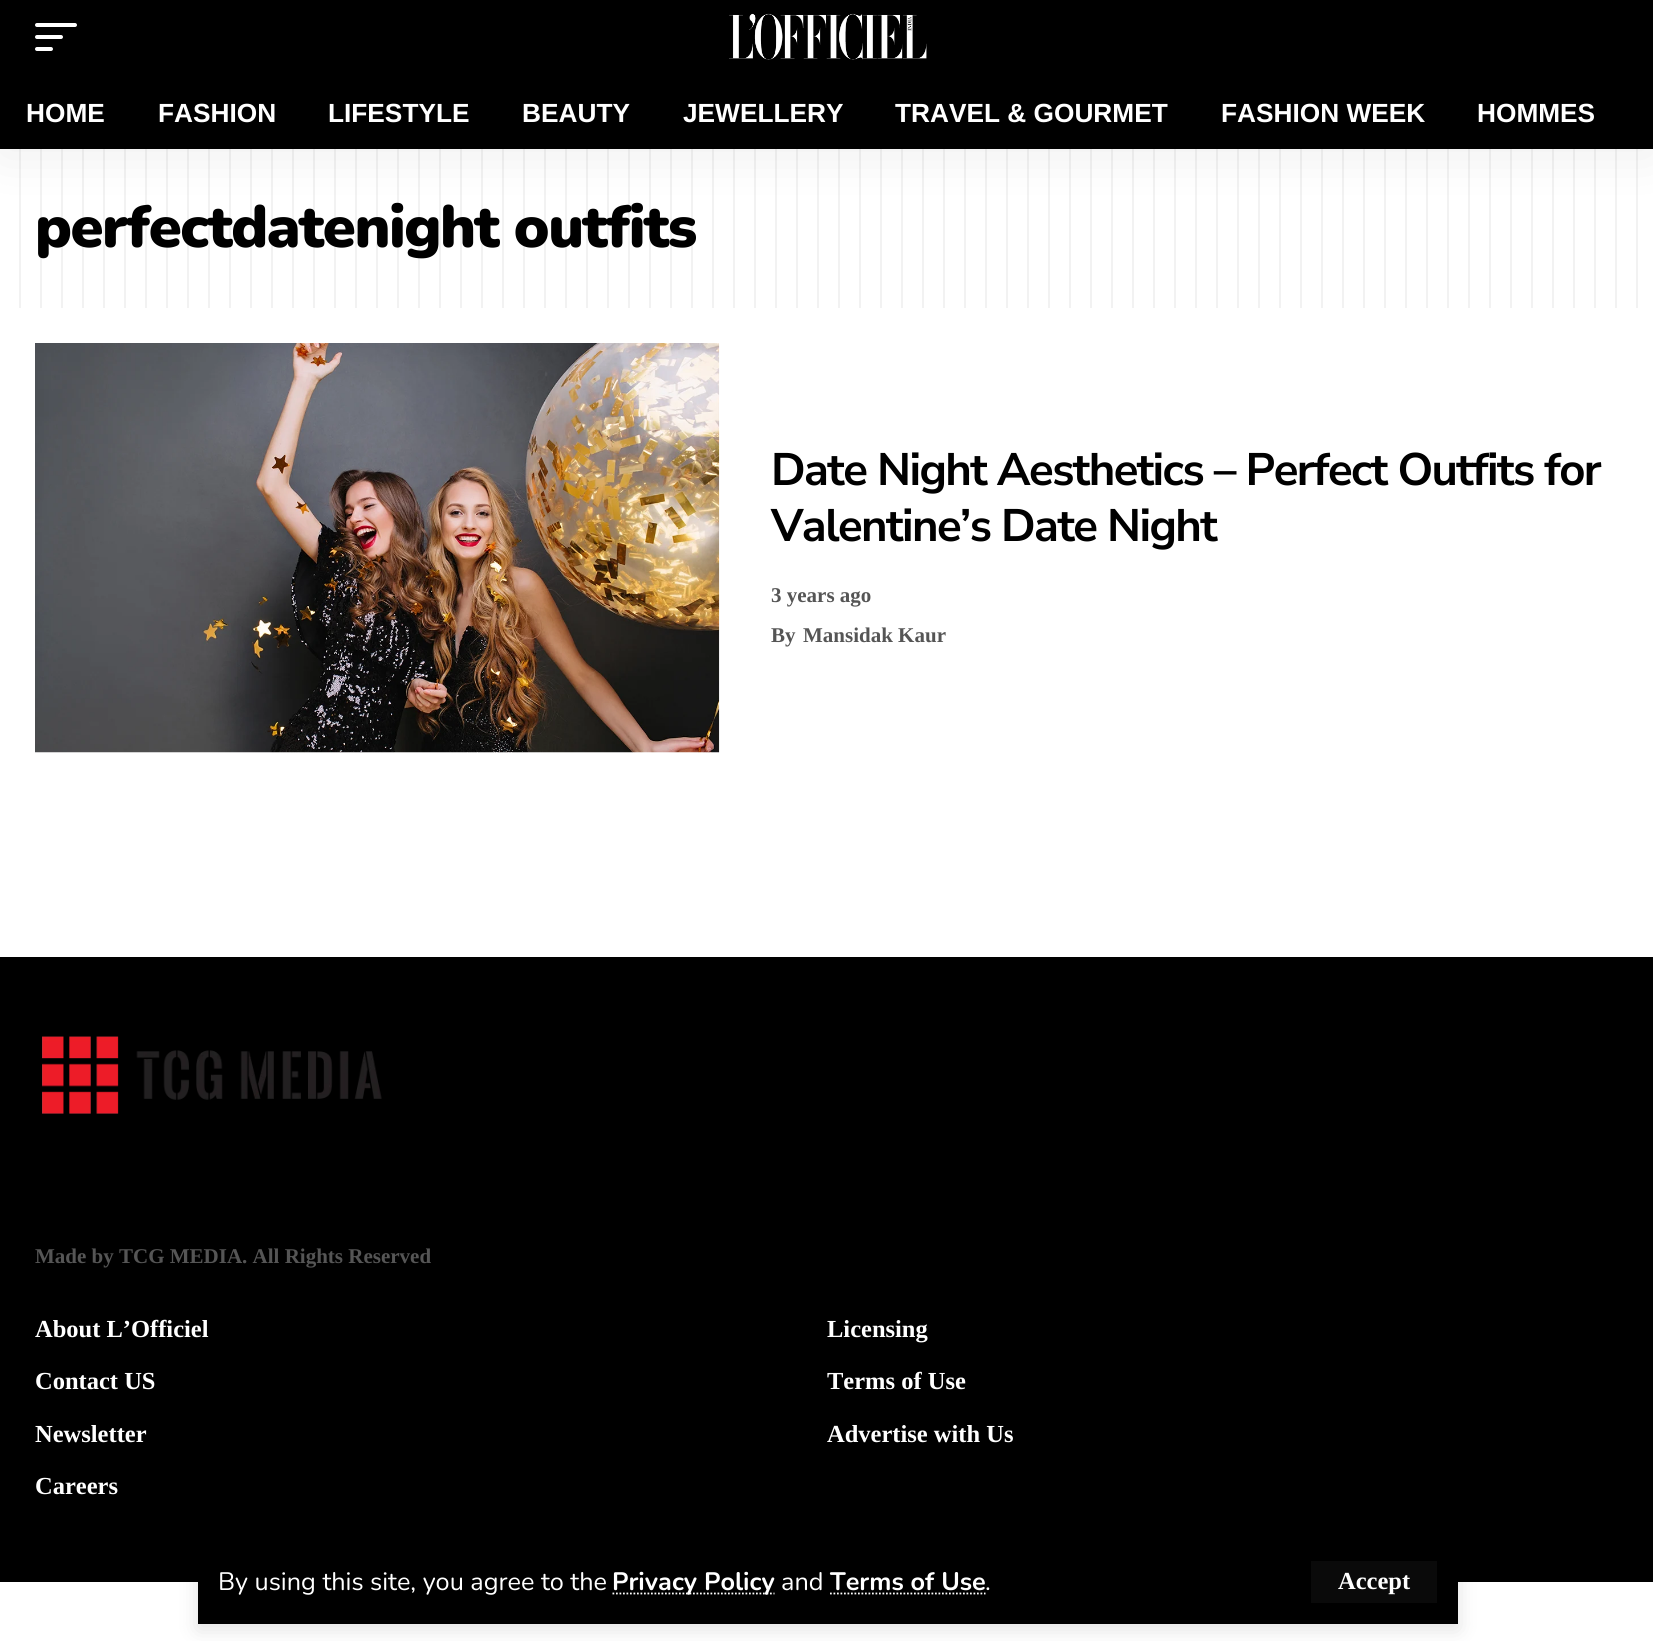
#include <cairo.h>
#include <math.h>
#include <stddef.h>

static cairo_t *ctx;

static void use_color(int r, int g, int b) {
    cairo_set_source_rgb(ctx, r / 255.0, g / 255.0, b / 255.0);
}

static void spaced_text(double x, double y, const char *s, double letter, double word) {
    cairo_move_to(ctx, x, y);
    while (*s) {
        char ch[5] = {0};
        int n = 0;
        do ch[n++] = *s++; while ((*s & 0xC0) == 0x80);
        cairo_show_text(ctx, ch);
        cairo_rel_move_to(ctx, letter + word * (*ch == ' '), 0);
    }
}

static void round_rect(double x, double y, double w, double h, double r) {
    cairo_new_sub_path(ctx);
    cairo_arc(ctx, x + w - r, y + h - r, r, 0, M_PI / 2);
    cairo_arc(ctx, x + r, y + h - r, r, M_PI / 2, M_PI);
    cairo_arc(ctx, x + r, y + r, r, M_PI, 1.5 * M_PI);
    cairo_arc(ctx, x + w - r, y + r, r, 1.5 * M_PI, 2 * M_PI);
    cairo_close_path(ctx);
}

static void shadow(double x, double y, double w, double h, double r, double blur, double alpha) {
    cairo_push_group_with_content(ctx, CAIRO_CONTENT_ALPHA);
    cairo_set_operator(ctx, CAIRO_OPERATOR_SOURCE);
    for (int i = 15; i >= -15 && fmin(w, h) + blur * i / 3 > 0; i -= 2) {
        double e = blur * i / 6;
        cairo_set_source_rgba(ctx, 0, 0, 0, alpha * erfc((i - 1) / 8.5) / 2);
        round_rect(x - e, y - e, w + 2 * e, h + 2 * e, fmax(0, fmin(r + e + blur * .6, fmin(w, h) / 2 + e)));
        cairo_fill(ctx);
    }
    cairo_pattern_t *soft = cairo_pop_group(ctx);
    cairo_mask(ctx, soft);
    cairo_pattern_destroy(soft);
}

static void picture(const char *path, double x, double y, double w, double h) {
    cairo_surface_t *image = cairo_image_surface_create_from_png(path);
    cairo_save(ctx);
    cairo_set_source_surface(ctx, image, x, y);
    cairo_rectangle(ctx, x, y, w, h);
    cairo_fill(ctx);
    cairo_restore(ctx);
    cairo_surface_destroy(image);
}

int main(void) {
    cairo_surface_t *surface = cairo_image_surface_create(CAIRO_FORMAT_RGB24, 1653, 1641);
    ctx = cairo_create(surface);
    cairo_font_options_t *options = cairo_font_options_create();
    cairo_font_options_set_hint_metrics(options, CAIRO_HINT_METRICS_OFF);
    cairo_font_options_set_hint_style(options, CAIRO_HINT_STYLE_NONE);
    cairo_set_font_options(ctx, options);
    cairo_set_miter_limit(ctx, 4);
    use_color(255, 255, 255);
    cairo_paint(ctx);
    cairo_select_font_face(ctx, "Nunito Black", CAIRO_FONT_SLANT_NORMAL, CAIRO_FONT_WEIGHT_NORMAL);
    cairo_set_font_size(ctx, 59.5);
    use_color(0, 0, 0);
    spaced_text(35, 247, "perfectdatenight outfits", -1.5, 0);
    picture("img2.png", 19, 149, 1619, 159);
    use_color(0, 0, 0);
    shadow(0, 7, 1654, 149, 0, 26, 0.07);
    use_color(0, 0, 0);
    cairo_rectangle(ctx, 0, 0, 1653, 149);
    cairo_fill(ctx);
    use_color(255, 255, 255);
    round_rect(35, 23, 42, 4, 2);
    cairo_fill(ctx);
    round_rect(35, 35, 28, 4, 2);
    cairo_fill(ctx);
    round_rect(35, 47, 18, 4, 2);
    cairo_fill(ctx);
    picture("img1.png", 729, 13, 198, 47);
    cairo_select_font_face(ctx, "Liberation Sans", CAIRO_FONT_SLANT_NORMAL, CAIRO_FONT_WEIGHT_BOLD);
    cairo_set_font_size(ctx, 26.25);
    cairo_move_to(ctx, 26, 122);
    cairo_show_text(ctx, "HOME");
    cairo_move_to(ctx, 158, 122);
    cairo_show_text(ctx, "FASHION");
    cairo_move_to(ctx, 328, 122);
    cairo_show_text(ctx, "LIFESTYLE");
    cairo_move_to(ctx, 522, 122);
    cairo_show_text(ctx, "BEAUTY");
    cairo_move_to(ctx, 683, 122);
    cairo_show_text(ctx, "JEWELLERY");
    cairo_move_to(ctx, 895, 122);
    cairo_show_text(ctx, "TRAVEL & GOURMET");
    cairo_move_to(ctx, 1221, 122);
    cairo_show_text(ctx, "FASHION WEEK");
    cairo_move_to(ctx, 1477, 122);
    cairo_show_text(ctx, "HOMMES");
    use_color(0, 0, 0);
    cairo_rectangle(ctx, 0, 957, 1653, 625);
    cairo_fill(ctx);
    use_color(0, 0, 0);
    shadow(198, 1545, 1260, 84, 0, 10.5, 0.12);
    use_color(0, 0, 0);
    cairo_rectangle(ctx, 198, 1582, 1260, 42);
    cairo_fill(ctx);
    cairo_select_font_face(ctx, "Nunito", CAIRO_FONT_SLANT_NORMAL, CAIRO_FONT_WEIGHT_NORMAL);
    cairo_set_font_size(ctx, 25.25);
    use_color(255, 255, 255);
    cairo_move_to(ctx, 218, 1590);
    cairo_show_text(ctx, "By using this site, you agree to the");
    cairo_new_path(ctx);
    cairo_move_to(ctx, 612.5, 1593.5);
    cairo_line_to(ctx, 774.5, 1593.5);
    cairo_set_line_width(ctx, 1.8);
    cairo_set_dash(ctx, (double[]){1.75, 1.75}, 2, 0);
    cairo_stroke(ctx);
    cairo_select_font_face(ctx, "Nunito", CAIRO_FONT_SLANT_NORMAL, CAIRO_FONT_WEIGHT_BOLD);
    cairo_move_to(ctx, 612, 1590);
    cairo_show_text(ctx, "Privacy Policy");
    cairo_select_font_face(ctx, "Nunito", CAIRO_FONT_SLANT_NORMAL, CAIRO_FONT_WEIGHT_NORMAL);
    cairo_move_to(ctx, 781, 1590);
    cairo_show_text(ctx, "and");
    cairo_select_font_face(ctx, "Nunito", CAIRO_FONT_SLANT_NORMAL, CAIRO_FONT_WEIGHT_BOLD);
    cairo_move_to(ctx, 830, 1590);
    cairo_show_text(ctx, "Terms of Use");
    cairo_new_path(ctx);
    cairo_move_to(ctx, 830, 1593.5);
    cairo_line_to(ctx, 985.5, 1593.5);
    cairo_stroke(ctx);
    cairo_select_font_face(ctx, "Nunito", CAIRO_FONT_SLANT_NORMAL, CAIRO_FONT_WEIGHT_NORMAL);
    cairo_move_to(ctx, 985, 1590);
    cairo_show_text(ctx, ".");
    use_color(10, 10, 10);
    cairo_rectangle(ctx, 1311, 1561, 126, 42);
    cairo_fill(ctx);
    cairo_select_font_face(ctx, "Liberation Serif", CAIRO_FONT_SLANT_NORMAL, CAIRO_FONT_WEIGHT_BOLD);
    cairo_set_font_size(ctx, 24.5);
    use_color(255, 255, 255);
    cairo_move_to(ctx, 1338, 1589);
    cairo_show_text(ctx, "Accept");
    picture("img3.png", 35, 343, 685, 410);
    cairo_select_font_face(ctx, "Nunito Sans", CAIRO_FONT_SLANT_NORMAL, CAIRO_FONT_WEIGHT_BOLD);
    cairo_set_font_size(ctx, 45.5);
    use_color(0, 0, 0);
    spaced_text(771, 485, "Date Night Aesthetics – Perfect Outfits for", -1.6, 0);
    spaced_text(771, 541, "Valentine’s Date Night", -1.6, 0);
    cairo_select_font_face(ctx, "Liberation Serif", CAIRO_FONT_SLANT_NORMAL, CAIRO_FONT_WEIGHT_BOLD);
    cairo_set_font_size(ctx, 21);
    use_color(85, 85, 85);
    cairo_move_to(ctx, 771, 602);
    cairo_show_text(ctx, "3 years ago");
    cairo_move_to(ctx, 771, 642);
    cairo_show_text(ctx, "By");
    cairo_move_to(ctx, 803, 642);
    cairo_show_text(ctx, "Mansidak Kaur");
    picture("img4.png", 42, 1036, 340, 78);
    cairo_move_to(ctx, 35, 1263);
    cairo_show_text(ctx, "Made by TCG MEDIA. All Rights Reserved");
    cairo_set_font_size(ctx, 24.5);
    use_color(255, 255, 255);
    cairo_move_to(ctx, 35, 1337);
    cairo_show_text(ctx, "About L’Officiel");
    cairo_move_to(ctx, 35, 1389);
    cairo_show_text(ctx, "Contact US");
    cairo_move_to(ctx, 35, 1442);
    cairo_show_text(ctx, "Newsletter");
    cairo_move_to(ctx, 35, 1494);
    cairo_show_text(ctx, "Careers");
    cairo_move_to(ctx, 827, 1337);
    cairo_show_text(ctx, "Licensing");
    cairo_move_to(ctx, 827, 1389);
    cairo_show_text(ctx, "Terms of Use");
    cairo_move_to(ctx, 827, 1442);
    cairo_show_text(ctx, "Advertise with Us");
    cairo_surface_write_to_png(surface, "result.png");
    cairo_font_options_destroy(options);
    cairo_destroy(ctx);
    cairo_surface_destroy(surface);
    return 0;
}
